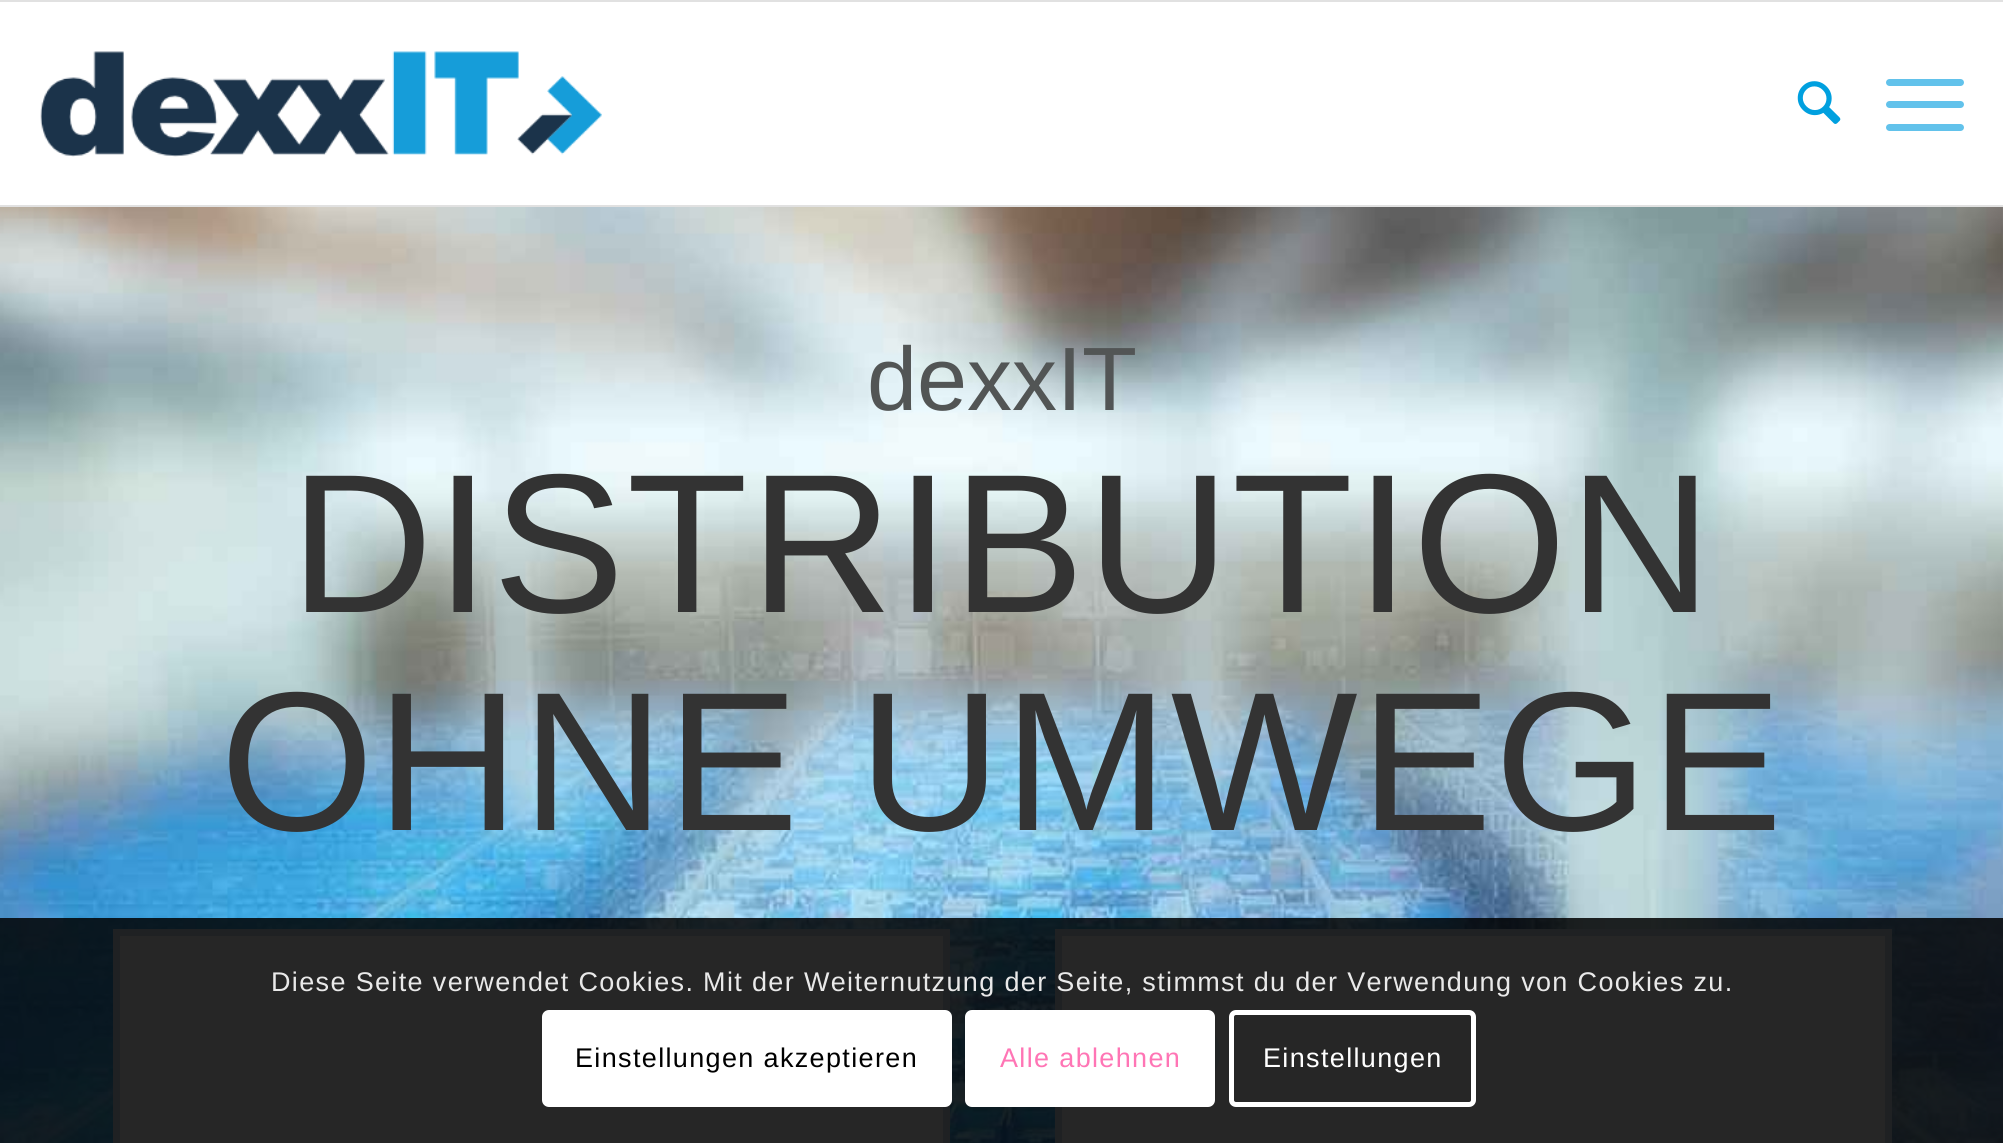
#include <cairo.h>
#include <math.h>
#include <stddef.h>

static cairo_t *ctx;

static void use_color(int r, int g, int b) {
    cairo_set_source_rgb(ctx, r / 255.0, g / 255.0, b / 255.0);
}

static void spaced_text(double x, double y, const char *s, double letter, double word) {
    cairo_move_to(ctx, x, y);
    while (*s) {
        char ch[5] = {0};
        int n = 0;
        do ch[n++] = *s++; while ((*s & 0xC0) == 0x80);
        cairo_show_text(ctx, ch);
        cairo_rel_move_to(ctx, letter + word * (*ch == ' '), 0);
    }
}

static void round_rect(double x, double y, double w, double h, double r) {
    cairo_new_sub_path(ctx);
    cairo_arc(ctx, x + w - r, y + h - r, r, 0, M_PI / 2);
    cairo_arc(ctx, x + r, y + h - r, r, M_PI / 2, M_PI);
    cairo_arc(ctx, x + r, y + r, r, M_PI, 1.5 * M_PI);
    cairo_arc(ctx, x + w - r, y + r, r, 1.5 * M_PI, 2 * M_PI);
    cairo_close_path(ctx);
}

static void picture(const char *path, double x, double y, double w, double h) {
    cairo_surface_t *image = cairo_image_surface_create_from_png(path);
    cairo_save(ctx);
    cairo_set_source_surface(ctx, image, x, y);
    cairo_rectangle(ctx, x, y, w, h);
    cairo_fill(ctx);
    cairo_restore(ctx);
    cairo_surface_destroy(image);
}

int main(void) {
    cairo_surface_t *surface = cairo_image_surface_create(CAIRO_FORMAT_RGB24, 2003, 1143);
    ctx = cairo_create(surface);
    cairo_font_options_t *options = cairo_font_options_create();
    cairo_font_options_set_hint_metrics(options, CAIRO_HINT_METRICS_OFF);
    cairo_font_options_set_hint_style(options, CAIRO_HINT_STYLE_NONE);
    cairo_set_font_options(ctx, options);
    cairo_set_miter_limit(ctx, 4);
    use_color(255, 255, 255);
    cairo_paint(ctx);
    use_color(225, 225, 225);
    cairo_rectangle(ctx, 0, 0, 2003, 2);
    cairo_fill(ctx);
    cairo_rectangle(ctx, 0, 205, 2003, 2);
    cairo_fill(ctx);
    picture("img1.png", 40, 51, 562, 106);
    picture("img2.png", 1797, 81, 44, 43);
    use_color(98, 194, 235);
    round_rect(1886, 101, 78, 7, 3.5);
    cairo_fill(ctx);
    round_rect(1886, 79, 78, 7, 3.5);
    cairo_fill(ctx);
    round_rect(1886, 124, 78, 7, 3.5);
    cairo_fill(ctx);
    picture("img3.png", 0, 207, 2003, 936);
    cairo_select_font_face(ctx, "Liberation Sans", CAIRO_FONT_SLANT_NORMAL, CAIRO_FONT_WEIGHT_NORMAL);
    cairo_set_font_size(ctx, 90);
    use_color(82, 85, 85);
    cairo_move_to(ctx, 867, 410);
    cairo_show_text(ctx, "dexxIT");
    cairo_set_font_size(ctx, 198);
    use_color(51, 51, 51);
    spaced_text(290, 612, "DISTRIBUTION", 2.25, 0);
    spaced_text(220, 830, "OHNE UMWEGE", 2.25, 0);
    use_color(255, 255, 255);
    cairo_rectangle(ctx, 116.5, 932.5, 830, 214);
    cairo_fill_preserve(ctx);
    use_color(206, 224, 234);
    cairo_set_line_width(ctx, 7);
    cairo_stroke(ctx);
    use_color(255, 255, 255);
    cairo_rectangle(ctx, 1058.5, 932.5, 830, 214);
    cairo_fill_preserve(ctx);
    use_color(206, 224, 234);
    cairo_stroke(ctx);
    use_color(230, 245, 252);
    cairo_arc(ctx, 1184, 1053, 35.5, 0, 2 * M_PI);
    cairo_fill_preserve(ctx);
    cairo_set_line_width(ctx, 1);
    cairo_stroke(ctx);
    cairo_set_source_rgba(ctx, 0, 0, 0, 0.85);
    cairo_rectangle(ctx, 0, 918, 2003, 225);
    cairo_fill(ctx);
    cairo_set_font_size(ctx, 27);
    use_color(233, 233, 233);
    spaced_text(271, 991, "Diese Seite verwendet Cookies. Mit der Weiternutzung der Seite, stimmst du der Verwendung von Cookies zu.", 1.35, 0);
    use_color(255, 255, 255);
    round_rect(542, 1010, 410, 97, 7);
    cairo_fill(ctx);
    use_color(0, 0, 0);
    spaced_text(575, 1067, "Einstellungen akzeptieren", 1.35, 0);
    use_color(255, 255, 255);
    round_rect(967.5, 1012.5, 245, 92, 4.5);
    cairo_fill_preserve(ctx);
    cairo_set_line_width(ctx, 5);
    cairo_stroke(ctx);
    use_color(255, 117, 181);
    spaced_text(1000, 1067, "Alle ablehnen", 1.35, 0);
    round_rect(1231.5, 1012.5, 242, 92, 4.5);
    use_color(255, 255, 255);
    cairo_stroke(ctx);
    spaced_text(1263, 1067, "Einstellungen", 1.35, 0);
    cairo_surface_write_to_png(surface, "result.png");
    cairo_font_options_destroy(options);
    cairo_destroy(ctx);
    cairo_surface_destroy(surface);
    return 0;
}
